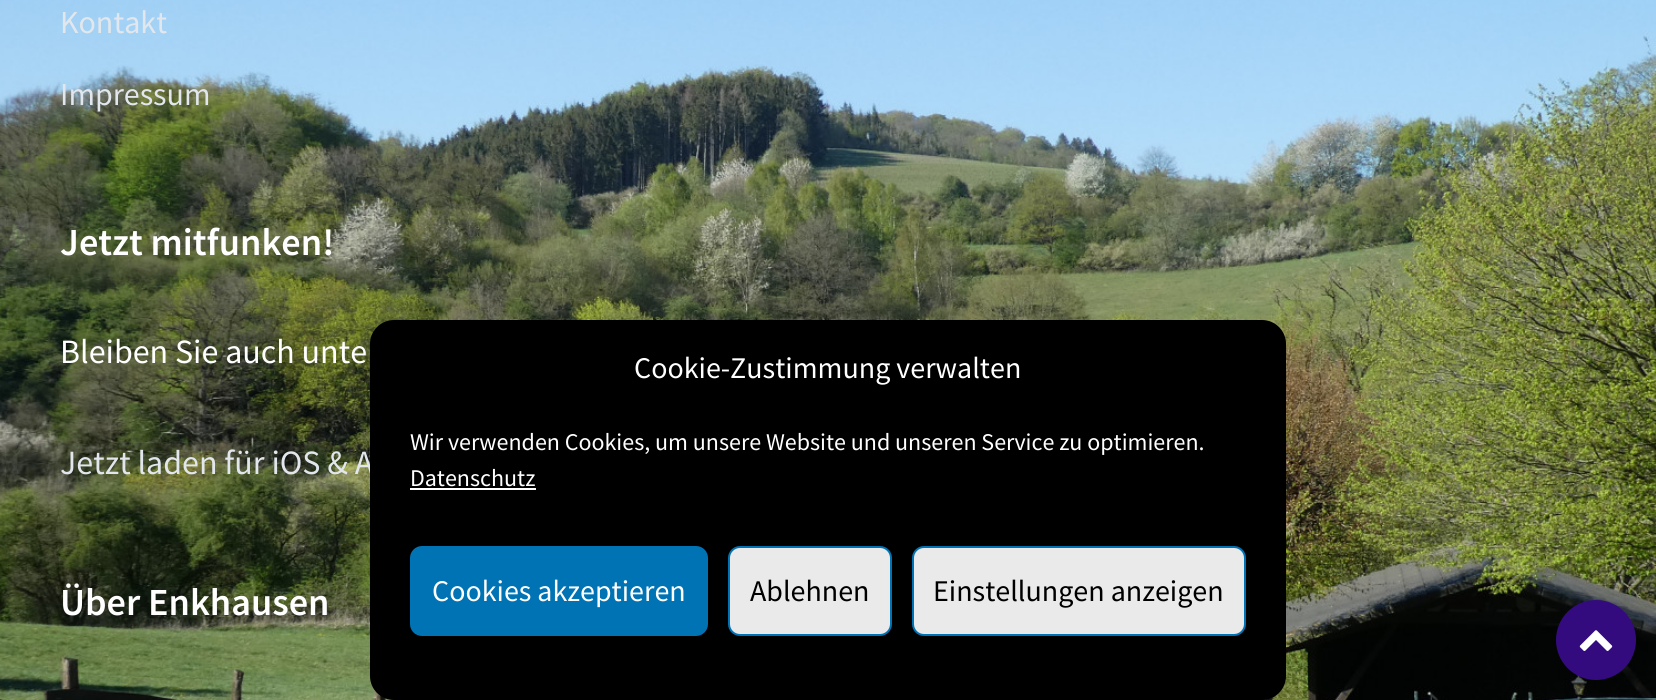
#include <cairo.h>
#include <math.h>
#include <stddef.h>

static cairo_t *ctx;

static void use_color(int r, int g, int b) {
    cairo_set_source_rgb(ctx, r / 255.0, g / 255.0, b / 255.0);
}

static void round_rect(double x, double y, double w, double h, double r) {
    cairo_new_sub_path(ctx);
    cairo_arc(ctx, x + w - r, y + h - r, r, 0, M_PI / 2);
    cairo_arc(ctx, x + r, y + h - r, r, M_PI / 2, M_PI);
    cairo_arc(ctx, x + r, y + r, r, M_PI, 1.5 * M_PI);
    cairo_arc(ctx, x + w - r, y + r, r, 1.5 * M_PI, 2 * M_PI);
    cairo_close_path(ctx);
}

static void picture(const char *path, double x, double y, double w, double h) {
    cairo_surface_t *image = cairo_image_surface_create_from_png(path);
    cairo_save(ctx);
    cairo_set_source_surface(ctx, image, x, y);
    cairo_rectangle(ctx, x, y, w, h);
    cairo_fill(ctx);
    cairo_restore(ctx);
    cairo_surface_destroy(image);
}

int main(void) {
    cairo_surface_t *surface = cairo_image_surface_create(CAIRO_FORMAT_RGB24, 1656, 700);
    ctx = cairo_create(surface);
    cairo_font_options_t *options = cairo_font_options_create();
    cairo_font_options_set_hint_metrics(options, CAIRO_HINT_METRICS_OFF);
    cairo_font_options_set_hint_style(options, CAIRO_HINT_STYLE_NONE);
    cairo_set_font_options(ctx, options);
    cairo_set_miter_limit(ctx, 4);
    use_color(255, 255, 255);
    cairo_paint(ctx);
    picture("img1.png", 0, 0, 1656, 700);
    cairo_select_font_face(ctx, "Source Sans Pro", CAIRO_FONT_SLANT_NORMAL, CAIRO_FONT_WEIGHT_NORMAL);
    cairo_set_font_size(ctx, 32);
    use_color(225, 231, 236);
    cairo_move_to(ctx, 60, 33);
    cairo_show_text(ctx, "Kontakt");
    cairo_move_to(ctx, 60, 105);
    cairo_show_text(ctx, "Impressum");
    cairo_select_font_face(ctx, "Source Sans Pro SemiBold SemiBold", CAIRO_FONT_SLANT_NORMAL, CAIRO_FONT_WEIGHT_NORMAL);
    cairo_set_font_size(ctx, 38.25);
    use_color(255, 255, 255);
    cairo_move_to(ctx, 60, 255);
    cairo_show_text(ctx, "Jetzt mitfunken!");
    cairo_select_font_face(ctx, "Source Sans Pro", CAIRO_FONT_SLANT_NORMAL, CAIRO_FONT_WEIGHT_NORMAL);
    cairo_set_font_size(ctx, 34);
    cairo_move_to(ctx, 60, 363);
    cairo_show_text(ctx, "Bleiben Sie auch unte");
    use_color(225, 231, 236);
    cairo_move_to(ctx, 60, 474);
    cairo_show_text(ctx, "Jetzt laden für iOS & A");
    cairo_select_font_face(ctx, "Source Sans Pro SemiBold SemiBold", CAIRO_FONT_SLANT_NORMAL, CAIRO_FONT_WEIGHT_NORMAL);
    cairo_set_font_size(ctx, 38.25);
    use_color(255, 255, 255);
    cairo_move_to(ctx, 60, 615);
    cairo_show_text(ctx, "Über Enkhausen");
    use_color(52, 11, 127);
    cairo_new_path(ctx);
    cairo_arc(ctx, 1596, 640, 40, 0, 2 * M_PI);
    cairo_fill(ctx);
    picture("img2.png", 1579, 630, 34, 21);
    use_color(0, 0, 0);
    round_rect(370, 320, 916, 380, 24);
    cairo_fill(ctx);
    cairo_select_font_face(ctx, "Source Sans Pro", CAIRO_FONT_SLANT_NORMAL, CAIRO_FONT_WEIGHT_NORMAL);
    cairo_set_font_size(ctx, 30);
    use_color(255, 255, 255);
    cairo_move_to(ctx, 634, 378);
    cairo_show_text(ctx, "Cookie-Zustimmung verwalten");
    cairo_set_font_size(ctx, 24);
    cairo_move_to(ctx, 410, 450);
    cairo_show_text(ctx, "Wir verwenden Cookies, um unsere Website und unseren Service zu optimieren.");
    cairo_move_to(ctx, 410, 486);
    cairo_show_text(ctx, "Datenschutz");
    cairo_rectangle(ctx, 410, 488, 126, 2);
    cairo_fill(ctx);
    use_color(0, 115, 181);
    round_rect(411, 547, 296, 88, 11);
    cairo_fill_preserve(ctx);
    cairo_stroke(ctx);
    cairo_set_font_size(ctx, 30);
    use_color(255, 255, 255);
    cairo_move_to(ctx, 432, 601);
    cairo_show_text(ctx, "Cookies akzeptieren");
    use_color(235, 234, 234);
    round_rect(729, 547, 162, 88, 11);
    cairo_fill_preserve(ctx);
    use_color(0, 115, 181);
    cairo_stroke(ctx);
    use_color(0, 0, 0);
    cairo_move_to(ctx, 750, 601);
    cairo_show_text(ctx, "Ablehnen");
    use_color(235, 234, 234);
    round_rect(913, 547, 332, 88, 11);
    cairo_fill_preserve(ctx);
    use_color(0, 115, 181);
    cairo_stroke(ctx);
    use_color(0, 0, 0);
    cairo_move_to(ctx, 933, 601);
    cairo_show_text(ctx, "Einstellungen anzeigen");
    cairo_surface_write_to_png(surface, "result.png");
    cairo_font_options_destroy(options);
    cairo_destroy(ctx);
    cairo_surface_destroy(surface);
    return 0;
}
